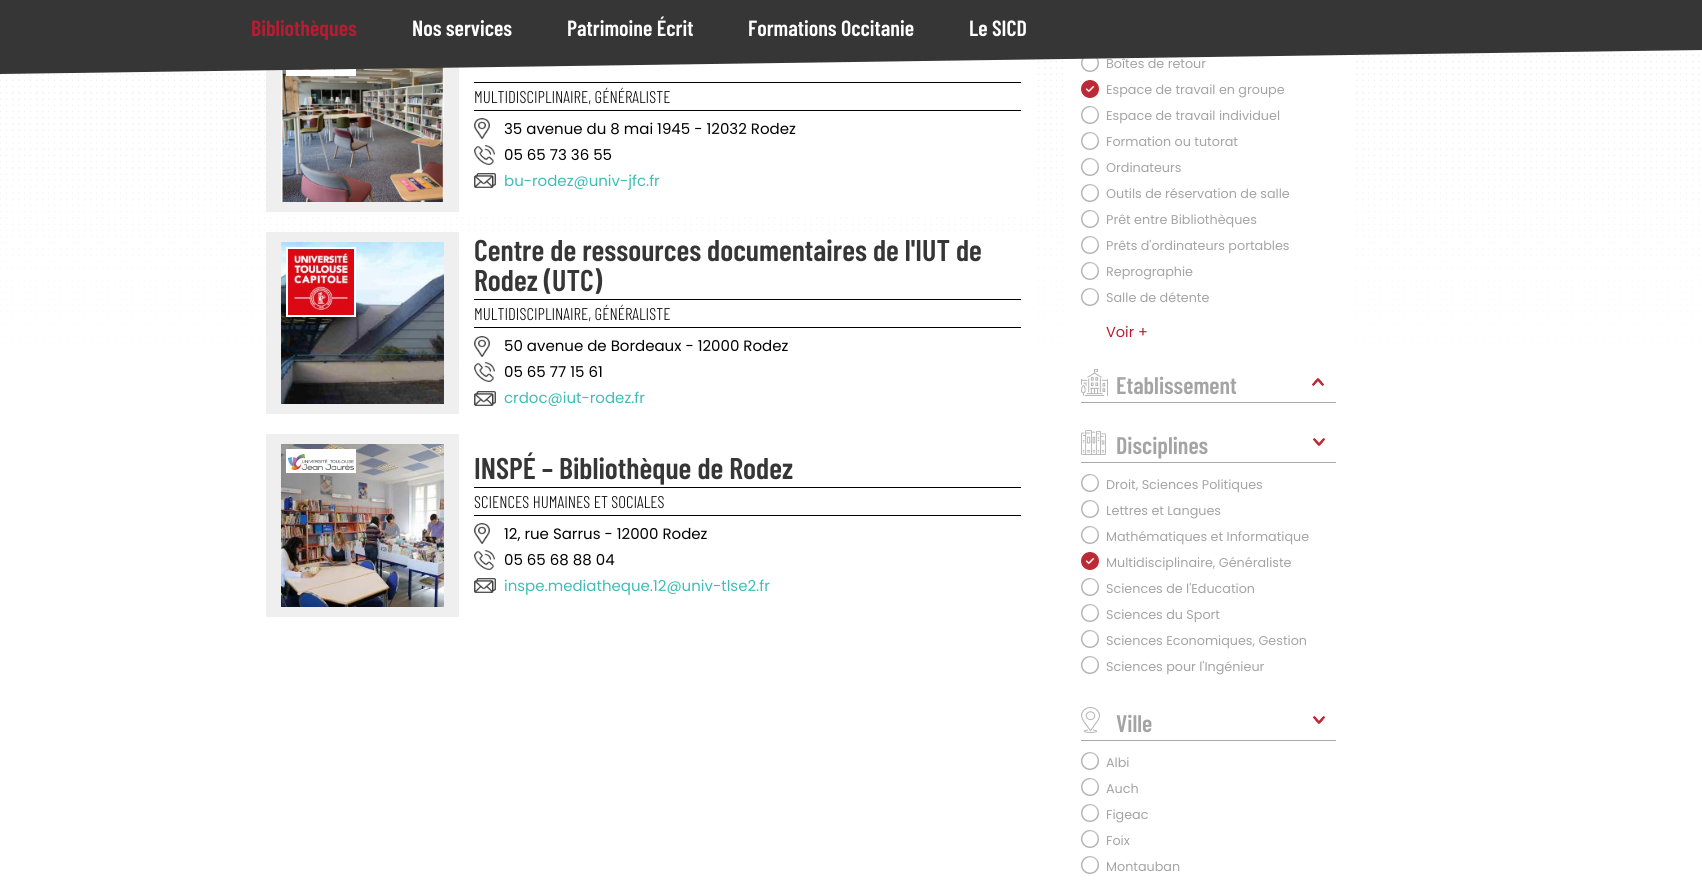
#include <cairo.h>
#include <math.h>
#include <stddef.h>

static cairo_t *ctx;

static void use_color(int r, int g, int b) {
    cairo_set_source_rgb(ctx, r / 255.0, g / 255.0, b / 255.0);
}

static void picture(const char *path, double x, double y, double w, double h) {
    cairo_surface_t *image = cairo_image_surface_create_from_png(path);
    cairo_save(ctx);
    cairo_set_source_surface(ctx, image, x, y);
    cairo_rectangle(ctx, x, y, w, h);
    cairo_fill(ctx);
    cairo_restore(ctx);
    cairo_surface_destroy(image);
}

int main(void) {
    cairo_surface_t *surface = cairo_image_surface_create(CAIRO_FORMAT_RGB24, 1702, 881);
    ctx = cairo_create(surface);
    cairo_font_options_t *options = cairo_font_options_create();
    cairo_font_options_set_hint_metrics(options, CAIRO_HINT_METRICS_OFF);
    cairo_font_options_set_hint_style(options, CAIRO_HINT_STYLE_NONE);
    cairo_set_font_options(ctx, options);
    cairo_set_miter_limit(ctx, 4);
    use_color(255, 255, 255);
    cairo_paint(ctx);
    picture("img20.png", 0, 50, 1700, 831);
    use_color(255, 255, 255);
    cairo_rectangle(ctx, 461, 61, 572, 151);
    cairo_fill(ctx);
    use_color(239, 239, 239);
    cairo_rectangle(ctx, 266, 67, 193, 145);
    cairo_fill(ctx);
    picture("img1.png", 281, 67, 163, 135);
    use_color(255, 255, 255);
    cairo_rectangle(ctx, 286, 69, 70, 7);
    cairo_fill(ctx);
    picture("img2.png", 296, 69, 39, 1);
    cairo_rectangle(ctx, 1068, 55, 283, 301);
    cairo_fill(ctx);
    picture("img12.png", 1081, 58, 18, 14);
    cairo_select_font_face(ctx, "Poppins", CAIRO_FONT_SLANT_NORMAL, CAIRO_FONT_WEIGHT_NORMAL);
    cairo_set_font_size(ctx, 12.75);
    use_color(165, 164, 164);
    cairo_move_to(ctx, 1106, 68);
    cairo_show_text(ctx, "Boîtes de retour");
    use_color(54, 54, 54);
    cairo_new_path(ctx);
    cairo_move_to(ctx, 0, -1);
    cairo_line_to(ctx, 1702, -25);
    cairo_line_to(ctx, 1702, 50);
    cairo_line_to(ctx, 0, 74);
    cairo_close_path(ctx);
    cairo_fill(ctx);
    cairo_select_font_face(ctx, "Barlow Condensed SemiBold", CAIRO_FONT_SLANT_NORMAL, CAIRO_FONT_WEIGHT_NORMAL);
    cairo_set_font_size(ctx, 22);
    use_color(185, 28, 50);
    cairo_move_to(ctx, 251, 36);
    cairo_show_text(ctx, "Bibliothèques");
    use_color(255, 255, 255);
    cairo_move_to(ctx, 412, 36);
    cairo_show_text(ctx, "Nos services");
    cairo_move_to(ctx, 567, 36);
    cairo_show_text(ctx, "Patrimoine Écrit");
    cairo_move_to(ctx, 748, 36);
    cairo_show_text(ctx, "Formations Occitanie");
    cairo_move_to(ctx, 969, 36);
    cairo_show_text(ctx, "Le SICD");
    use_color(0, 0, 0);
    cairo_rectangle(ctx, 474, 82, 547, 1);
    cairo_fill(ctx);
    cairo_rectangle(ctx, 474, 110, 547, 1);
    cairo_fill(ctx);
    cairo_select_font_face(ctx, "Barlow Condensed Light", CAIRO_FONT_SLANT_NORMAL, CAIRO_FONT_WEIGHT_NORMAL);
    cairo_set_font_size(ctx, 17);
    cairo_move_to(ctx, 474, 103);
    cairo_show_text(ctx, "MULTIDISCIPLINAIRE, GÉNÉRALISTE");
    picture("img3.png", 474, 118, 16, 21);
    cairo_select_font_face(ctx, "Poppins", CAIRO_FONT_SLANT_NORMAL, CAIRO_FONT_WEIGHT_NORMAL);
    cairo_set_font_size(ctx, 15);
    cairo_move_to(ctx, 504, 134);
    cairo_show_text(ctx, "35 avenue du 8 mai 1945 - 12032 Rodez");
    picture("img4.png", 474, 145, 21, 20);
    cairo_move_to(ctx, 504, 160);
    cairo_show_text(ctx, "05 65 73 36 55");
    picture("img5.png", 474, 173, 22, 15);
    use_color(61, 189, 182);
    cairo_move_to(ctx, 504, 186);
    cairo_show_text(ctx, "bu-rodez@univ-jfc.fr");
    use_color(255, 255, 255);
    cairo_rectangle(ctx, 462, 236, 571, 120);
    cairo_fill(ctx);
    use_color(239, 239, 239);
    cairo_rectangle(ctx, 266, 232, 193, 182);
    cairo_fill(ctx);
    picture("img6.png", 281, 242, 163, 162);
    use_color(255, 255, 255);
    cairo_rectangle(ctx, 286, 247, 70, 70);
    cairo_fill(ctx);
    picture("img7.png", 288, 249, 66, 66);
    cairo_select_font_face(ctx, "Barlow Condensed SemiBold", CAIRO_FONT_SLANT_NORMAL, CAIRO_FONT_WEIGHT_NORMAL);
    cairo_set_font_size(ctx, 30);
    use_color(54, 54, 54);
    cairo_move_to(ctx, 474, 261);
    cairo_show_text(ctx, "Centre de ressources documentaires de l'IUT de");
    cairo_move_to(ctx, 474, 291);
    cairo_show_text(ctx, "Rodez (UTC)");
    use_color(0, 0, 0);
    cairo_rectangle(ctx, 474, 299, 547, 1);
    cairo_fill(ctx);
    cairo_rectangle(ctx, 474, 327, 547, 1);
    cairo_fill(ctx);
    cairo_select_font_face(ctx, "Barlow Condensed Light", CAIRO_FONT_SLANT_NORMAL, CAIRO_FONT_WEIGHT_NORMAL);
    cairo_set_font_size(ctx, 17);
    cairo_move_to(ctx, 474, 320);
    cairo_show_text(ctx, "MULTIDISCIPLINAIRE, GÉNÉRALISTE");
    picture("img3.png", 474, 336, 16, 21);
    cairo_select_font_face(ctx, "Poppins", CAIRO_FONT_SLANT_NORMAL, CAIRO_FONT_WEIGHT_NORMAL);
    cairo_set_font_size(ctx, 15);
    cairo_move_to(ctx, 504, 351);
    cairo_show_text(ctx, "50 avenue de Bordeaux - 12000 Rodez");
    picture("img8.png", 474, 362, 21, 20);
    cairo_move_to(ctx, 504, 377);
    cairo_show_text(ctx, "05 65 77 15 61");
    picture("img5.png", 474, 391, 22, 15);
    use_color(61, 189, 182);
    cairo_move_to(ctx, 504, 403);
    cairo_show_text(ctx, "crdoc@iut-rodez.fr");
    use_color(239, 239, 239);
    cairo_rectangle(ctx, 266, 434, 193, 183);
    cairo_fill(ctx);
    picture("img9.png", 281, 444, 163, 163);
    use_color(255, 255, 255);
    cairo_rectangle(ctx, 286, 449, 70, 24);
    cairo_fill(ctx);
    picture("img10.png", 288, 454, 66, 16);
    cairo_select_font_face(ctx, "Barlow Condensed SemiBold", CAIRO_FONT_SLANT_NORMAL, CAIRO_FONT_WEIGHT_NORMAL);
    cairo_set_font_size(ctx, 30);
    use_color(54, 54, 54);
    cairo_move_to(ctx, 474, 479);
    cairo_show_text(ctx, "INSPÉ – Bibliothèque de Rodez");
    use_color(0, 0, 0);
    cairo_rectangle(ctx, 474, 487, 547, 1);
    cairo_fill(ctx);
    cairo_rectangle(ctx, 474, 515, 547, 1);
    cairo_fill(ctx);
    cairo_select_font_face(ctx, "Barlow Condensed Light", CAIRO_FONT_SLANT_NORMAL, CAIRO_FONT_WEIGHT_NORMAL);
    cairo_set_font_size(ctx, 17);
    cairo_move_to(ctx, 474, 508);
    cairo_show_text(ctx, "SCIENCES HUMAINES ET SOCIALES");
    picture("img3.png", 474, 523, 16, 21);
    cairo_select_font_face(ctx, "Poppins", CAIRO_FONT_SLANT_NORMAL, CAIRO_FONT_WEIGHT_NORMAL);
    cairo_set_font_size(ctx, 15);
    cairo_move_to(ctx, 504, 539);
    cairo_show_text(ctx, "12, rue Sarrus - 12000 Rodez");
    picture("img11.png", 474, 550, 21, 20);
    cairo_move_to(ctx, 504, 565);
    cairo_show_text(ctx, "05 65 68 88 04");
    picture("img5.png", 474, 578, 22, 15);
    use_color(61, 189, 182);
    cairo_move_to(ctx, 504, 591);
    cairo_show_text(ctx, "inspe.mediatheque.12@univ-tlse2.fr");
    picture("img13.png", 1081, 80, 18, 18);
    cairo_set_font_size(ctx, 12.75);
    use_color(165, 164, 164);
    cairo_move_to(ctx, 1106, 94);
    cairo_show_text(ctx, "Espace de travail en groupe");
    picture("img14.png", 1081, 106, 18, 18);
    cairo_move_to(ctx, 1106, 120);
    cairo_show_text(ctx, "Espace de travail individuel");
    picture("img14.png", 1081, 132, 18, 18);
    cairo_move_to(ctx, 1106, 146);
    cairo_show_text(ctx, "Formation ou tutorat");
    picture("img14.png", 1081, 158, 18, 18);
    cairo_move_to(ctx, 1106, 172);
    cairo_show_text(ctx, "Ordinateurs");
    picture("img14.png", 1081, 184, 18, 18);
    cairo_move_to(ctx, 1106, 198);
    cairo_show_text(ctx, "Outils de réservation de salle");
    picture("img14.png", 1081, 210, 18, 18);
    cairo_move_to(ctx, 1106, 224);
    cairo_show_text(ctx, "Prêt entre Bibliothèques");
    picture("img14.png", 1081, 236, 18, 18);
    cairo_move_to(ctx, 1106, 250);
    cairo_show_text(ctx, "Prêts d'ordinateurs portables");
    picture("img14.png", 1081, 262, 18, 18);
    cairo_move_to(ctx, 1106, 276);
    cairo_show_text(ctx, "Reprographie");
    picture("img14.png", 1081, 288, 18, 18);
    cairo_move_to(ctx, 1106, 302);
    cairo_show_text(ctx, "Salle de détente");
    cairo_set_font_size(ctx, 14.5);
    use_color(185, 28, 50);
    cairo_move_to(ctx, 1106, 337);
    cairo_show_text(ctx, "Voir +");
    picture("img15.png", 1081, 369, 27, 27);
    use_color(169, 169, 169);
    cairo_rectangle(ctx, 1081, 402, 255, 1);
    cairo_fill(ctx);
    cairo_select_font_face(ctx, "Barlow Condensed SemiBold", CAIRO_FONT_SLANT_NORMAL, CAIRO_FONT_WEIGHT_NORMAL);
    cairo_set_font_size(ctx, 24);
    use_color(165, 164, 164);
    cairo_move_to(ctx, 1116, 394);
    cairo_show_text(ctx, "Etablissement");
    picture("img16.png", 1312, 378, 12, 8);
    picture("img17.png", 1081, 430, 25, 25);
    use_color(169, 169, 169);
    cairo_rectangle(ctx, 1081, 462, 255, 1);
    cairo_fill(ctx);
    use_color(165, 164, 164);
    cairo_move_to(ctx, 1116, 454);
    cairo_show_text(ctx, "Disciplines");
    picture("img18.png", 1313, 438, 12, 8);
    picture("img14.png", 1081, 474, 18, 18);
    cairo_select_font_face(ctx, "Poppins", CAIRO_FONT_SLANT_NORMAL, CAIRO_FONT_WEIGHT_NORMAL);
    cairo_set_font_size(ctx, 12.75);
    cairo_move_to(ctx, 1106, 489);
    cairo_show_text(ctx, "Droit, Sciences Politiques");
    picture("img14.png", 1081, 500, 18, 18);
    cairo_move_to(ctx, 1106, 515);
    cairo_show_text(ctx, "Lettres et Langues");
    picture("img14.png", 1081, 526, 18, 18);
    cairo_move_to(ctx, 1106, 541);
    cairo_show_text(ctx, "Mathématiques et Informatique");
    picture("img13.png", 1081, 552, 18, 18);
    cairo_move_to(ctx, 1106, 567);
    cairo_show_text(ctx, "Multidisciplinaire, Généraliste");
    picture("img14.png", 1081, 578, 18, 18);
    cairo_move_to(ctx, 1106, 593);
    cairo_show_text(ctx, "Sciences de l'Education");
    picture("img14.png", 1081, 604, 18, 18);
    cairo_move_to(ctx, 1106, 619);
    cairo_show_text(ctx, "Sciences du Sport");
    picture("img14.png", 1081, 630, 18, 18);
    cairo_move_to(ctx, 1106, 645);
    cairo_show_text(ctx, "Sciences Economiques, Gestion");
    picture("img14.png", 1081, 656, 18, 18);
    cairo_move_to(ctx, 1106, 671);
    cairo_show_text(ctx, "Sciences pour l'Ingénieur");
    picture("img19.png", 1081, 707, 19, 26);
    use_color(169, 169, 169);
    cairo_rectangle(ctx, 1081, 740, 255, 1);
    cairo_fill(ctx);
    cairo_select_font_face(ctx, "Barlow Condensed SemiBold", CAIRO_FONT_SLANT_NORMAL, CAIRO_FONT_WEIGHT_NORMAL);
    cairo_set_font_size(ctx, 24);
    use_color(165, 164, 164);
    cairo_move_to(ctx, 1116, 732);
    cairo_show_text(ctx, "Ville");
    picture("img18.png", 1313, 716, 12, 8);
    picture("img14.png", 1081, 752, 18, 18);
    cairo_select_font_face(ctx, "Poppins", CAIRO_FONT_SLANT_NORMAL, CAIRO_FONT_WEIGHT_NORMAL);
    cairo_set_font_size(ctx, 12.75);
    cairo_move_to(ctx, 1106, 767);
    cairo_show_text(ctx, "Albi");
    picture("img14.png", 1081, 778, 18, 18);
    cairo_move_to(ctx, 1106, 793);
    cairo_show_text(ctx, "Auch");
    picture("img14.png", 1081, 804, 18, 18);
    cairo_move_to(ctx, 1106, 819);
    cairo_show_text(ctx, "Figeac");
    picture("img14.png", 1081, 830, 18, 18);
    cairo_move_to(ctx, 1106, 845);
    cairo_show_text(ctx, "Foix");
    picture("img14.png", 1081, 856, 18, 18);
    cairo_move_to(ctx, 1106, 871);
    cairo_show_text(ctx, "Montauban");
    cairo_surface_write_to_png(surface, "result.png");
    cairo_font_options_destroy(options);
    cairo_destroy(ctx);
    cairo_surface_destroy(surface);
    return 0;
}
